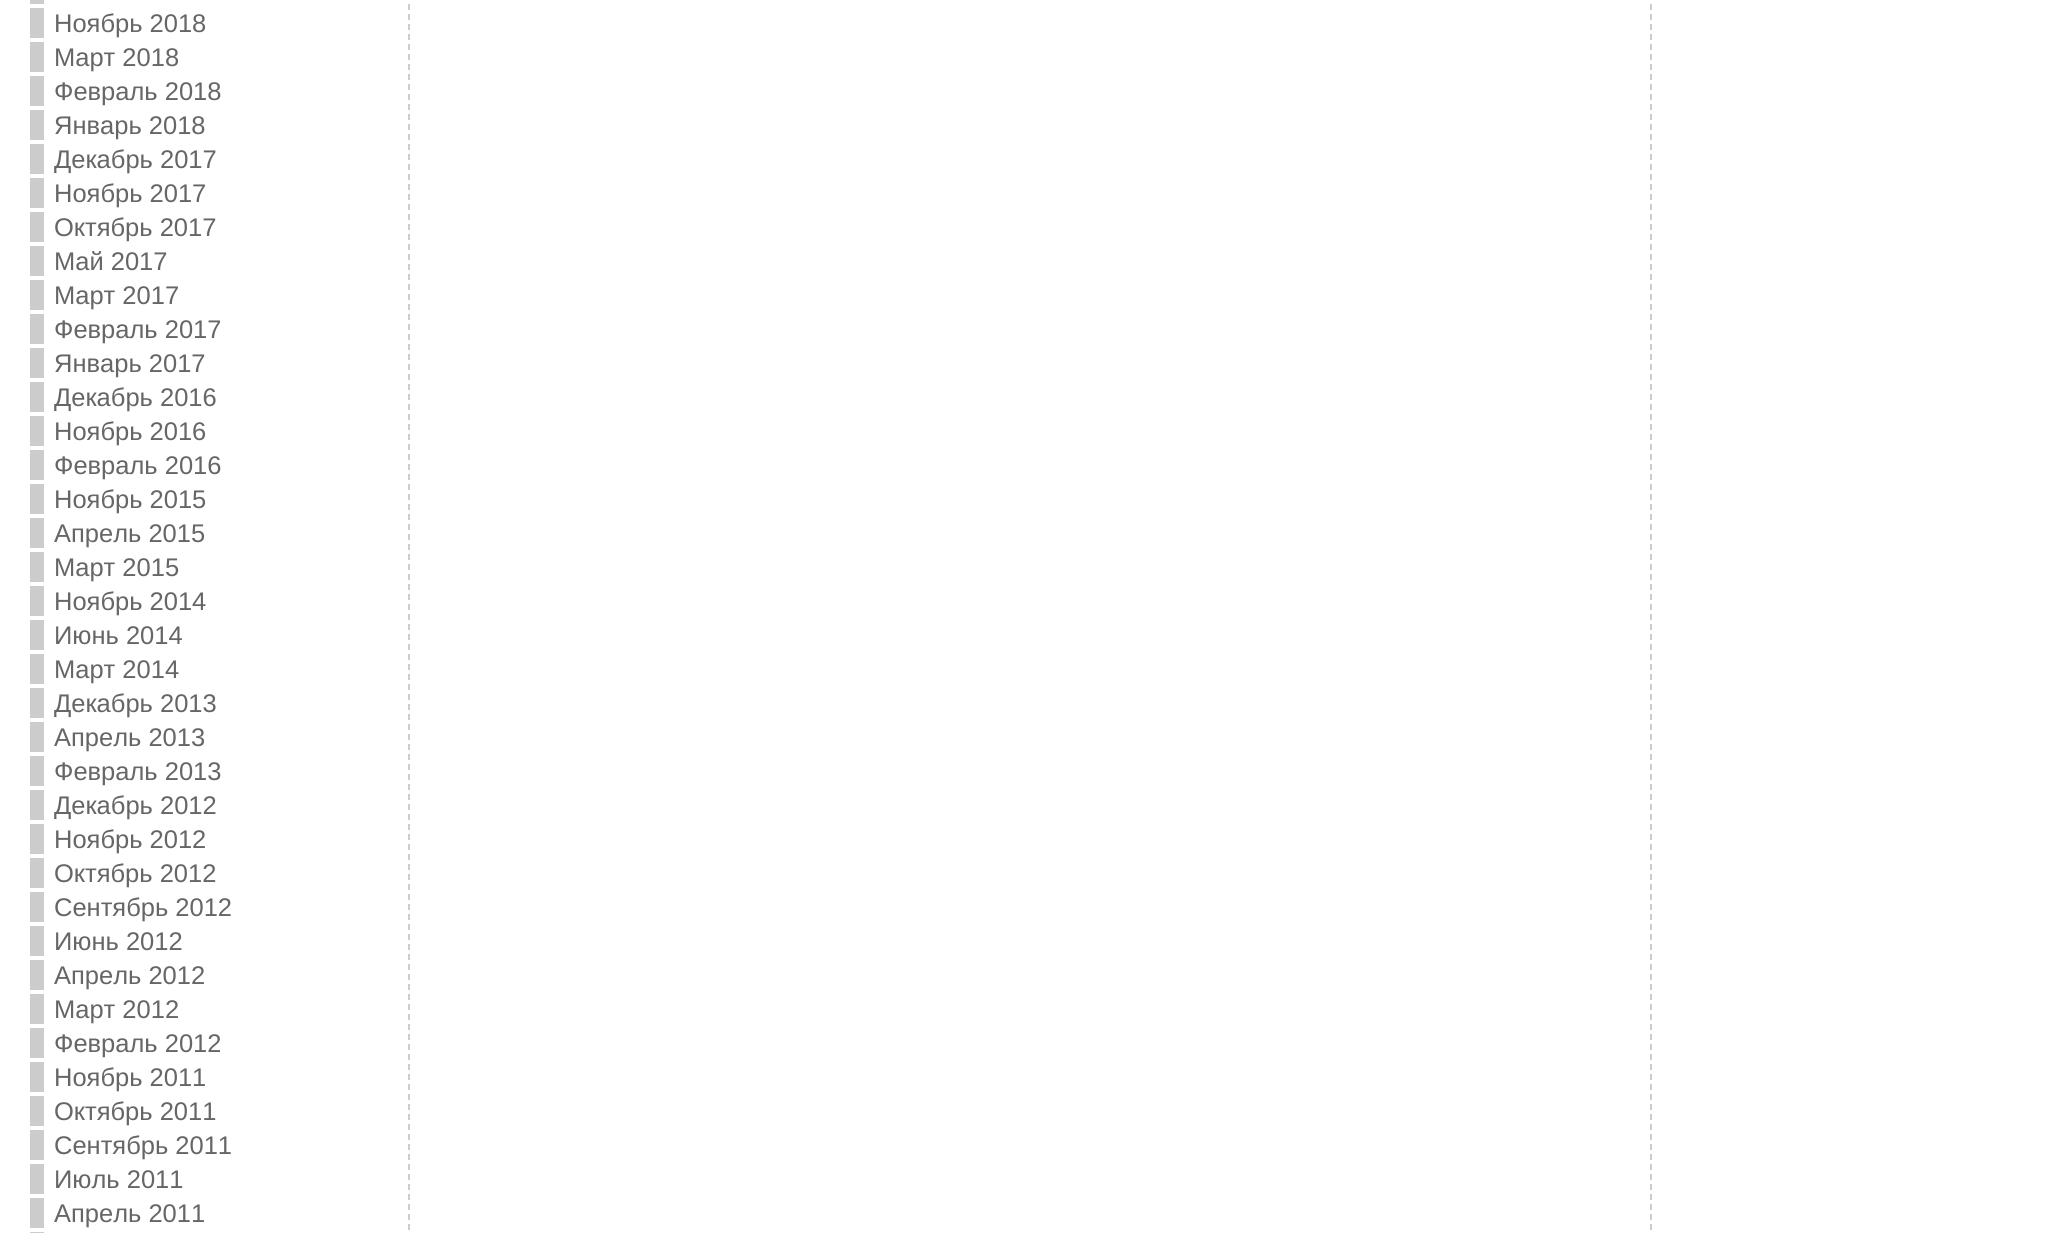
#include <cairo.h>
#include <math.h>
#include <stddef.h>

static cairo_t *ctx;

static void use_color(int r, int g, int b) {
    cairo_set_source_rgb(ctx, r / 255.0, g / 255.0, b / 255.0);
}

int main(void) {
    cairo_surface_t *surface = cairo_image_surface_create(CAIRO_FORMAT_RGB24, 2060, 1233);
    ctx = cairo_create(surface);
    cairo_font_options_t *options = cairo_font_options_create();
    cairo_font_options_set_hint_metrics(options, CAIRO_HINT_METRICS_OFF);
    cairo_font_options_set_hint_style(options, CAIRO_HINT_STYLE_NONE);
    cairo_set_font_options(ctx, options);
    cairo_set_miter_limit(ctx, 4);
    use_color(255, 255, 255);
    cairo_paint(ctx);
    cairo_new_path(ctx);
    cairo_move_to(ctx, 409, -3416);
    cairo_line_to(ctx, 409, 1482);
    use_color(204, 204, 204);
    cairo_set_dash(ctx, (double[]){6, 4}, 2, 0);
    cairo_stroke(ctx);
    cairo_rectangle(ctx, 30, 0, 14, 4);
    cairo_fill(ctx);
    cairo_rectangle(ctx, 30, 8, 14, 30);
    cairo_fill(ctx);
    cairo_select_font_face(ctx, "Liberation Sans", CAIRO_FONT_SLANT_NORMAL, CAIRO_FONT_WEIGHT_NORMAL);
    cairo_set_font_size(ctx, 25.5);
    use_color(102, 102, 102);
    cairo_move_to(ctx, 54, 32);
    cairo_show_text(ctx, "Ноябрь 2018");
    use_color(204, 204, 204);
    cairo_rectangle(ctx, 30, 42, 14, 30);
    cairo_fill(ctx);
    use_color(102, 102, 102);
    cairo_move_to(ctx, 54, 66);
    cairo_show_text(ctx, "Март 2018");
    use_color(204, 204, 204);
    cairo_rectangle(ctx, 30, 76, 14, 30);
    cairo_fill(ctx);
    use_color(102, 102, 102);
    cairo_move_to(ctx, 54, 100);
    cairo_show_text(ctx, "Февраль 2018");
    use_color(204, 204, 204);
    cairo_rectangle(ctx, 30, 110, 14, 30);
    cairo_fill(ctx);
    use_color(102, 102, 102);
    cairo_move_to(ctx, 54, 134);
    cairo_show_text(ctx, "Январь 2018");
    use_color(204, 204, 204);
    cairo_rectangle(ctx, 30, 144, 14, 30);
    cairo_fill(ctx);
    use_color(102, 102, 102);
    cairo_move_to(ctx, 54, 168);
    cairo_show_text(ctx, "Декабрь 2017");
    use_color(204, 204, 204);
    cairo_rectangle(ctx, 30, 178, 14, 30);
    cairo_fill(ctx);
    use_color(102, 102, 102);
    cairo_move_to(ctx, 54, 202);
    cairo_show_text(ctx, "Ноябрь 2017");
    use_color(204, 204, 204);
    cairo_rectangle(ctx, 30, 212, 14, 30);
    cairo_fill(ctx);
    use_color(102, 102, 102);
    cairo_move_to(ctx, 54, 236);
    cairo_show_text(ctx, "Октябрь 2017");
    use_color(204, 204, 204);
    cairo_rectangle(ctx, 30, 246, 14, 30);
    cairo_fill(ctx);
    use_color(102, 102, 102);
    cairo_move_to(ctx, 54, 270);
    cairo_show_text(ctx, "Май 2017");
    use_color(204, 204, 204);
    cairo_rectangle(ctx, 30, 280, 14, 30);
    cairo_fill(ctx);
    use_color(102, 102, 102);
    cairo_move_to(ctx, 54, 304);
    cairo_show_text(ctx, "Март 2017");
    use_color(204, 204, 204);
    cairo_rectangle(ctx, 30, 314, 14, 30);
    cairo_fill(ctx);
    use_color(102, 102, 102);
    cairo_move_to(ctx, 54, 338);
    cairo_show_text(ctx, "Февраль 2017");
    use_color(204, 204, 204);
    cairo_rectangle(ctx, 30, 348, 14, 30);
    cairo_fill(ctx);
    use_color(102, 102, 102);
    cairo_move_to(ctx, 54, 372);
    cairo_show_text(ctx, "Январь 2017");
    use_color(204, 204, 204);
    cairo_rectangle(ctx, 30, 382, 14, 30);
    cairo_fill(ctx);
    use_color(102, 102, 102);
    cairo_move_to(ctx, 54, 406);
    cairo_show_text(ctx, "Декабрь 2016");
    use_color(204, 204, 204);
    cairo_rectangle(ctx, 30, 416, 14, 30);
    cairo_fill(ctx);
    use_color(102, 102, 102);
    cairo_move_to(ctx, 54, 440);
    cairo_show_text(ctx, "Ноябрь 2016");
    use_color(204, 204, 204);
    cairo_rectangle(ctx, 30, 450, 14, 30);
    cairo_fill(ctx);
    use_color(102, 102, 102);
    cairo_move_to(ctx, 54, 474);
    cairo_show_text(ctx, "Февраль 2016");
    use_color(204, 204, 204);
    cairo_rectangle(ctx, 30, 484, 14, 30);
    cairo_fill(ctx);
    use_color(102, 102, 102);
    cairo_move_to(ctx, 54, 508);
    cairo_show_text(ctx, "Ноябрь 2015");
    use_color(204, 204, 204);
    cairo_rectangle(ctx, 30, 518, 14, 30);
    cairo_fill(ctx);
    use_color(102, 102, 102);
    cairo_move_to(ctx, 54, 542);
    cairo_show_text(ctx, "Апрель 2015");
    use_color(204, 204, 204);
    cairo_rectangle(ctx, 30, 552, 14, 30);
    cairo_fill(ctx);
    use_color(102, 102, 102);
    cairo_move_to(ctx, 54, 576);
    cairo_show_text(ctx, "Март 2015");
    use_color(204, 204, 204);
    cairo_rectangle(ctx, 30, 586, 14, 30);
    cairo_fill(ctx);
    use_color(102, 102, 102);
    cairo_move_to(ctx, 54, 610);
    cairo_show_text(ctx, "Ноябрь 2014");
    use_color(204, 204, 204);
    cairo_rectangle(ctx, 30, 620, 14, 30);
    cairo_fill(ctx);
    use_color(102, 102, 102);
    cairo_move_to(ctx, 54, 644);
    cairo_show_text(ctx, "Июнь 2014");
    use_color(204, 204, 204);
    cairo_rectangle(ctx, 30, 654, 14, 30);
    cairo_fill(ctx);
    use_color(102, 102, 102);
    cairo_move_to(ctx, 54, 678);
    cairo_show_text(ctx, "Март 2014");
    use_color(204, 204, 204);
    cairo_rectangle(ctx, 30, 688, 14, 30);
    cairo_fill(ctx);
    use_color(102, 102, 102);
    cairo_move_to(ctx, 54, 712);
    cairo_show_text(ctx, "Декабрь 2013");
    use_color(204, 204, 204);
    cairo_rectangle(ctx, 30, 722, 14, 30);
    cairo_fill(ctx);
    use_color(102, 102, 102);
    cairo_move_to(ctx, 54, 746);
    cairo_show_text(ctx, "Апрель 2013");
    use_color(204, 204, 204);
    cairo_rectangle(ctx, 30, 756, 14, 30);
    cairo_fill(ctx);
    use_color(102, 102, 102);
    cairo_move_to(ctx, 54, 780);
    cairo_show_text(ctx, "Февраль 2013");
    use_color(204, 204, 204);
    cairo_rectangle(ctx, 30, 790, 14, 30);
    cairo_fill(ctx);
    use_color(102, 102, 102);
    cairo_move_to(ctx, 54, 814);
    cairo_show_text(ctx, "Декабрь 2012");
    use_color(204, 204, 204);
    cairo_rectangle(ctx, 30, 824, 14, 30);
    cairo_fill(ctx);
    use_color(102, 102, 102);
    cairo_move_to(ctx, 54, 848);
    cairo_show_text(ctx, "Ноябрь 2012");
    use_color(204, 204, 204);
    cairo_rectangle(ctx, 30, 858, 14, 30);
    cairo_fill(ctx);
    use_color(102, 102, 102);
    cairo_move_to(ctx, 54, 882);
    cairo_show_text(ctx, "Октябрь 2012");
    use_color(204, 204, 204);
    cairo_rectangle(ctx, 30, 892, 14, 30);
    cairo_fill(ctx);
    use_color(102, 102, 102);
    cairo_move_to(ctx, 54, 916);
    cairo_show_text(ctx, "Сентябрь 2012");
    use_color(204, 204, 204);
    cairo_rectangle(ctx, 30, 926, 14, 30);
    cairo_fill(ctx);
    use_color(102, 102, 102);
    cairo_move_to(ctx, 54, 950);
    cairo_show_text(ctx, "Июнь 2012");
    use_color(204, 204, 204);
    cairo_rectangle(ctx, 30, 960, 14, 30);
    cairo_fill(ctx);
    use_color(102, 102, 102);
    cairo_move_to(ctx, 54, 984);
    cairo_show_text(ctx, "Апрель 2012");
    use_color(204, 204, 204);
    cairo_rectangle(ctx, 30, 994, 14, 30);
    cairo_fill(ctx);
    use_color(102, 102, 102);
    cairo_move_to(ctx, 54, 1018);
    cairo_show_text(ctx, "Март 2012");
    use_color(204, 204, 204);
    cairo_rectangle(ctx, 30, 1028, 14, 30);
    cairo_fill(ctx);
    use_color(102, 102, 102);
    cairo_move_to(ctx, 54, 1052);
    cairo_show_text(ctx, "Февраль 2012");
    use_color(204, 204, 204);
    cairo_rectangle(ctx, 30, 1062, 14, 30);
    cairo_fill(ctx);
    use_color(102, 102, 102);
    cairo_move_to(ctx, 54, 1086);
    cairo_show_text(ctx, "Ноябрь 2011");
    use_color(204, 204, 204);
    cairo_rectangle(ctx, 30, 1096, 14, 30);
    cairo_fill(ctx);
    use_color(102, 102, 102);
    cairo_move_to(ctx, 54, 1120);
    cairo_show_text(ctx, "Октябрь 2011");
    use_color(204, 204, 204);
    cairo_rectangle(ctx, 30, 1130, 14, 30);
    cairo_fill(ctx);
    use_color(102, 102, 102);
    cairo_move_to(ctx, 54, 1154);
    cairo_show_text(ctx, "Сентябрь 2011");
    use_color(204, 204, 204);
    cairo_rectangle(ctx, 30, 1164, 14, 30);
    cairo_fill(ctx);
    use_color(102, 102, 102);
    cairo_move_to(ctx, 54, 1188);
    cairo_show_text(ctx, "Июль 2011");
    use_color(204, 204, 204);
    cairo_rectangle(ctx, 30, 1198, 14, 30);
    cairo_fill(ctx);
    use_color(102, 102, 102);
    cairo_move_to(ctx, 54, 1222);
    cairo_show_text(ctx, "Апрель 2011");
    use_color(204, 204, 204);
    cairo_rectangle(ctx, 30, 1232, 14, 1);
    cairo_fill(ctx);
    cairo_new_path(ctx);
    cairo_move_to(ctx, 1651, -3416);
    cairo_line_to(ctx, 1651, 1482);
    cairo_stroke(ctx);
    cairo_surface_write_to_png(surface, "result.png");
    cairo_font_options_destroy(options);
    cairo_destroy(ctx);
    cairo_surface_destroy(surface);
    return 0;
}
